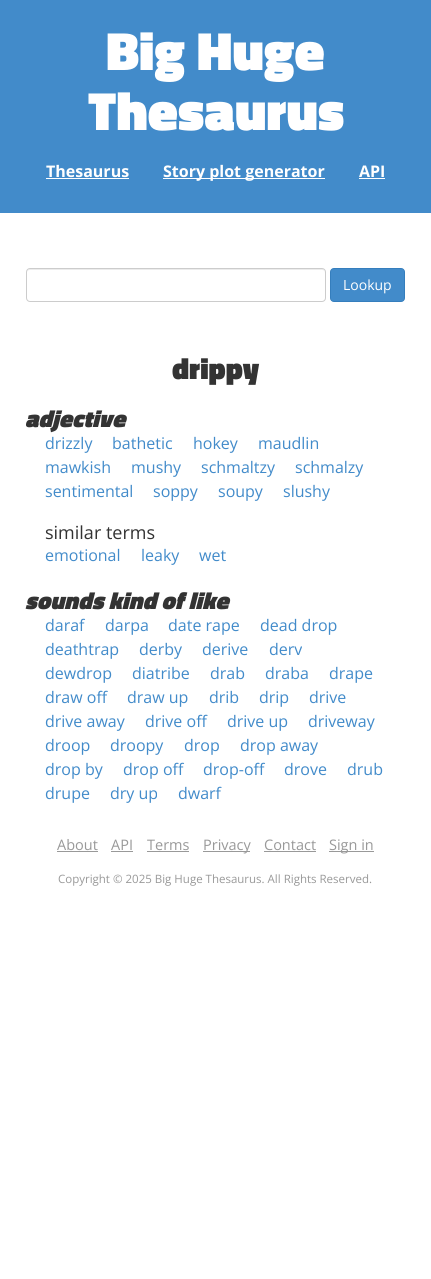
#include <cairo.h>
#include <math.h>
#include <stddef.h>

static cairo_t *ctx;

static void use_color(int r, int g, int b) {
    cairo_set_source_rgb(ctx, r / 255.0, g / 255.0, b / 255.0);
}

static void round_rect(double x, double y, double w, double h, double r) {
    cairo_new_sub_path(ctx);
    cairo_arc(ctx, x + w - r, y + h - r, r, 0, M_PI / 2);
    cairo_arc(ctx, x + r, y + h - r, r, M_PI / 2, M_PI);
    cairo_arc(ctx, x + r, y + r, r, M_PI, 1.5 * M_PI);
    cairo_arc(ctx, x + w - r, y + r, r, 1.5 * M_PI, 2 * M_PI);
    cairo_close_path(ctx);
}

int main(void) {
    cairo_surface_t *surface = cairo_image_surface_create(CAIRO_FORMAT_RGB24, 431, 1279);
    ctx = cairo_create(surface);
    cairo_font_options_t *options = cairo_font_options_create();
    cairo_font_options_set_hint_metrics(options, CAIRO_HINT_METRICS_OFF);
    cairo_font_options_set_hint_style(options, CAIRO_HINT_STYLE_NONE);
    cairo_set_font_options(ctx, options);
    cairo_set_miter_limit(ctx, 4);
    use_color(255, 255, 255);
    cairo_paint(ctx);
    use_color(66, 139, 202);
    cairo_rectangle(ctx, 0, 0, 431, 213);
    cairo_fill(ctx);
    cairo_select_font_face(ctx, "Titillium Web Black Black", CAIRO_FONT_SLANT_NORMAL, CAIRO_FONT_WEIGHT_NORMAL);
    cairo_set_font_size(ctx, 54.5);
    use_color(255, 255, 255);
    cairo_move_to(ctx, 106, 70);
    cairo_show_text(ctx, "Big Huge");
    cairo_move_to(ctx, 88, 130);
    cairo_show_text(ctx, "Thesaurus");
    cairo_select_font_face(ctx, "Open Sans", CAIRO_FONT_SLANT_NORMAL, CAIRO_FONT_WEIGHT_BOLD);
    cairo_set_font_size(ctx, 16);
    cairo_move_to(ctx, 46, 177);
    cairo_show_text(ctx, "Thesaurus");
    cairo_rectangle(ctx, 46, 178, 83, 1);
    cairo_fill(ctx);
    cairo_rectangle(ctx, 163, 178, 162, 1);
    cairo_fill(ctx);
    cairo_move_to(ctx, 163, 177);
    cairo_show_text(ctx, "Story plot generator");
    cairo_move_to(ctx, 359, 177);
    cairo_show_text(ctx, "API");
    cairo_rectangle(ctx, 359, 178, 26, 1);
    cairo_fill(ctx);
    use_color(236, 236, 236);
    cairo_new_path(ctx);
    cairo_move_to(ctx, 30, 270);
    cairo_line_to(ctx, 322, 270);
    cairo_curve_to(ctx, 324, 270, 325, 271, 325, 273);
    cairo_line_to(ctx, 324, 270);
    cairo_line_to(ctx, 323, 269);
    cairo_line_to(ctx, 30, 269);
    cairo_curve_to(ctx, 28, 269, 27, 271, 27, 273);
    cairo_curve_to(ctx, 27, 271, 28, 270, 30, 270);
    cairo_close_path(ctx);
    cairo_fill(ctx);
    round_rect(26.5, 268.5, 299, 33, 3.5);
    use_color(204, 204, 204);
    cairo_set_line_width(ctx, 1);
    cairo_stroke(ctx);
    use_color(66, 139, 202);
    round_rect(330.5, 268.5, 74, 33, 3.5);
    cairo_fill_preserve(ctx);
    use_color(53, 126, 189);
    cairo_stroke(ctx);
    cairo_select_font_face(ctx, "Open Sans", CAIRO_FONT_SLANT_NORMAL, CAIRO_FONT_WEIGHT_NORMAL);
    cairo_set_font_size(ctx, 14);
    use_color(255, 255, 255);
    cairo_move_to(ctx, 343, 290);
    cairo_show_text(ctx, "Lookup");
    cairo_select_font_face(ctx, "Titillium Web Black Black", CAIRO_FONT_SLANT_NORMAL, CAIRO_FONT_WEIGHT_NORMAL);
    cairo_set_font_size(ctx, 30);
    use_color(51, 51, 51);
    cairo_move_to(ctx, 172, 379);
    cairo_show_text(ctx, "drippy");
    cairo_select_font_face(ctx, "Titillium Web Black Black", CAIRO_FONT_SLANT_ITALIC, CAIRO_FONT_WEIGHT_NORMAL);
    cairo_set_font_size(ctx, 24);
    cairo_move_to(ctx, 25, 427);
    cairo_show_text(ctx, "adjective");
    cairo_select_font_face(ctx, "Open Sans", CAIRO_FONT_SLANT_NORMAL, CAIRO_FONT_WEIGHT_NORMAL);
    cairo_set_font_size(ctx, 16);
    use_color(66, 139, 202);
    cairo_move_to(ctx, 45, 449);
    cairo_show_text(ctx, "drizzly");
    cairo_move_to(ctx, 112, 449);
    cairo_show_text(ctx, "bathetic");
    cairo_move_to(ctx, 193, 449);
    cairo_show_text(ctx, "hokey");
    cairo_move_to(ctx, 258, 449);
    cairo_show_text(ctx, "maudlin");
    cairo_move_to(ctx, 45, 473);
    cairo_show_text(ctx, "mawkish");
    cairo_move_to(ctx, 131, 473);
    cairo_show_text(ctx, "mushy");
    cairo_move_to(ctx, 201, 473);
    cairo_show_text(ctx, "schmaltzy");
    cairo_move_to(ctx, 295, 473);
    cairo_show_text(ctx, "schmalzy");
    cairo_move_to(ctx, 45, 497);
    cairo_show_text(ctx, "sentimental");
    cairo_move_to(ctx, 153, 497);
    cairo_show_text(ctx, "soppy");
    cairo_move_to(ctx, 218, 497);
    cairo_show_text(ctx, "soupy");
    cairo_move_to(ctx, 283, 497);
    cairo_show_text(ctx, "slushy");
    cairo_set_font_size(ctx, 18);
    use_color(51, 51, 51);
    cairo_move_to(ctx, 45, 539);
    cairo_show_text(ctx, "similar terms");
    cairo_set_font_size(ctx, 16);
    use_color(66, 139, 202);
    cairo_move_to(ctx, 45, 561);
    cairo_show_text(ctx, "emotional");
    cairo_move_to(ctx, 141, 561);
    cairo_show_text(ctx, "leaky");
    cairo_move_to(ctx, 199, 561);
    cairo_show_text(ctx, "wet");
    cairo_select_font_face(ctx, "Titillium Web Black Black", CAIRO_FONT_SLANT_ITALIC, CAIRO_FONT_WEIGHT_NORMAL);
    cairo_set_font_size(ctx, 24);
    use_color(51, 51, 51);
    cairo_move_to(ctx, 25, 609);
    cairo_show_text(ctx, "sounds kind of like");
    cairo_select_font_face(ctx, "Open Sans", CAIRO_FONT_SLANT_NORMAL, CAIRO_FONT_WEIGHT_NORMAL);
    cairo_set_font_size(ctx, 16);
    use_color(66, 139, 202);
    cairo_move_to(ctx, 45, 631);
    cairo_show_text(ctx, "daraf");
    cairo_move_to(ctx, 105, 631);
    cairo_show_text(ctx, "darpa");
    cairo_move_to(ctx, 168, 631);
    cairo_show_text(ctx, "date rape");
    cairo_move_to(ctx, 260, 631);
    cairo_show_text(ctx, "dead drop");
    cairo_move_to(ctx, 45, 655);
    cairo_show_text(ctx, "deathtrap");
    cairo_move_to(ctx, 139, 655);
    cairo_show_text(ctx, "derby");
    cairo_move_to(ctx, 202, 655);
    cairo_show_text(ctx, "derive");
    cairo_move_to(ctx, 269, 655);
    cairo_show_text(ctx, "derv");
    cairo_move_to(ctx, 45, 679);
    cairo_show_text(ctx, "dewdrop");
    cairo_move_to(ctx, 132, 679);
    cairo_show_text(ctx, "diatribe");
    cairo_move_to(ctx, 210, 679);
    cairo_show_text(ctx, "drab");
    cairo_move_to(ctx, 265, 679);
    cairo_show_text(ctx, "draba");
    cairo_move_to(ctx, 329, 679);
    cairo_show_text(ctx, "drape");
    cairo_move_to(ctx, 45, 703);
    cairo_show_text(ctx, "draw off");
    cairo_move_to(ctx, 127, 703);
    cairo_show_text(ctx, "draw up");
    cairo_move_to(ctx, 209, 703);
    cairo_show_text(ctx, "drib");
    cairo_move_to(ctx, 259, 703);
    cairo_show_text(ctx, "drip");
    cairo_move_to(ctx, 309, 703);
    cairo_show_text(ctx, "drive");
    cairo_move_to(ctx, 45, 727);
    cairo_show_text(ctx, "drive away");
    cairo_move_to(ctx, 145, 727);
    cairo_show_text(ctx, "drive off");
    cairo_move_to(ctx, 227, 727);
    cairo_show_text(ctx, "drive up");
    cairo_move_to(ctx, 308, 727);
    cairo_show_text(ctx, "driveway");
    cairo_move_to(ctx, 45, 751);
    cairo_show_text(ctx, "droop");
    cairo_move_to(ctx, 110, 751);
    cairo_show_text(ctx, "droopy");
    cairo_move_to(ctx, 184, 751);
    cairo_show_text(ctx, "drop");
    cairo_move_to(ctx, 240, 751);
    cairo_show_text(ctx, "drop away");
    cairo_move_to(ctx, 45, 775);
    cairo_show_text(ctx, "drop by");
    cairo_move_to(ctx, 123, 775);
    cairo_show_text(ctx, "drop off");
    cairo_move_to(ctx, 203, 775);
    cairo_show_text(ctx, "drop-off");
    cairo_move_to(ctx, 284, 775);
    cairo_show_text(ctx, "drove");
    cairo_move_to(ctx, 347, 775);
    cairo_show_text(ctx, "drub");
    cairo_move_to(ctx, 45, 799);
    cairo_show_text(ctx, "drupe");
    cairo_move_to(ctx, 110, 799);
    cairo_show_text(ctx, "dry up");
    cairo_move_to(ctx, 178, 799);
    cairo_show_text(ctx, "dwarf");
    cairo_set_font_size(ctx, 14.5);
    use_color(153, 153, 153);
    cairo_move_to(ctx, 57, 850);
    cairo_show_text(ctx, "About");
    cairo_rectangle(ctx, 57, 851, 41, 1);
    cairo_fill(ctx);
    cairo_move_to(ctx, 111, 850);
    cairo_show_text(ctx, "API");
    cairo_rectangle(ctx, 111, 851, 22, 1);
    cairo_fill(ctx);
    cairo_move_to(ctx, 147, 850);
    cairo_show_text(ctx, "Terms");
    cairo_rectangle(ctx, 147, 851, 42, 1);
    cairo_fill(ctx);
    cairo_rectangle(ctx, 203, 851, 47, 1);
    cairo_fill(ctx);
    cairo_move_to(ctx, 203, 850);
    cairo_show_text(ctx, "Privacy");
    cairo_move_to(ctx, 264, 850);
    cairo_show_text(ctx, "Contact");
    cairo_rectangle(ctx, 264, 851, 52, 1);
    cairo_fill(ctx);
    cairo_rectangle(ctx, 329, 851, 45, 1);
    cairo_fill(ctx);
    cairo_move_to(ctx, 329, 850);
    cairo_show_text(ctx, "Sign in");
    cairo_set_font_size(ctx, 11.5);
    cairo_move_to(ctx, 58, 883);
    cairo_show_text(ctx, "Copyright © 2025 Big Huge Thesaurus. All Rights Reserved.");
    cairo_surface_write_to_png(surface, "result.png");
    cairo_font_options_destroy(options);
    cairo_destroy(ctx);
    cairo_surface_destroy(surface);
    return 0;
}
